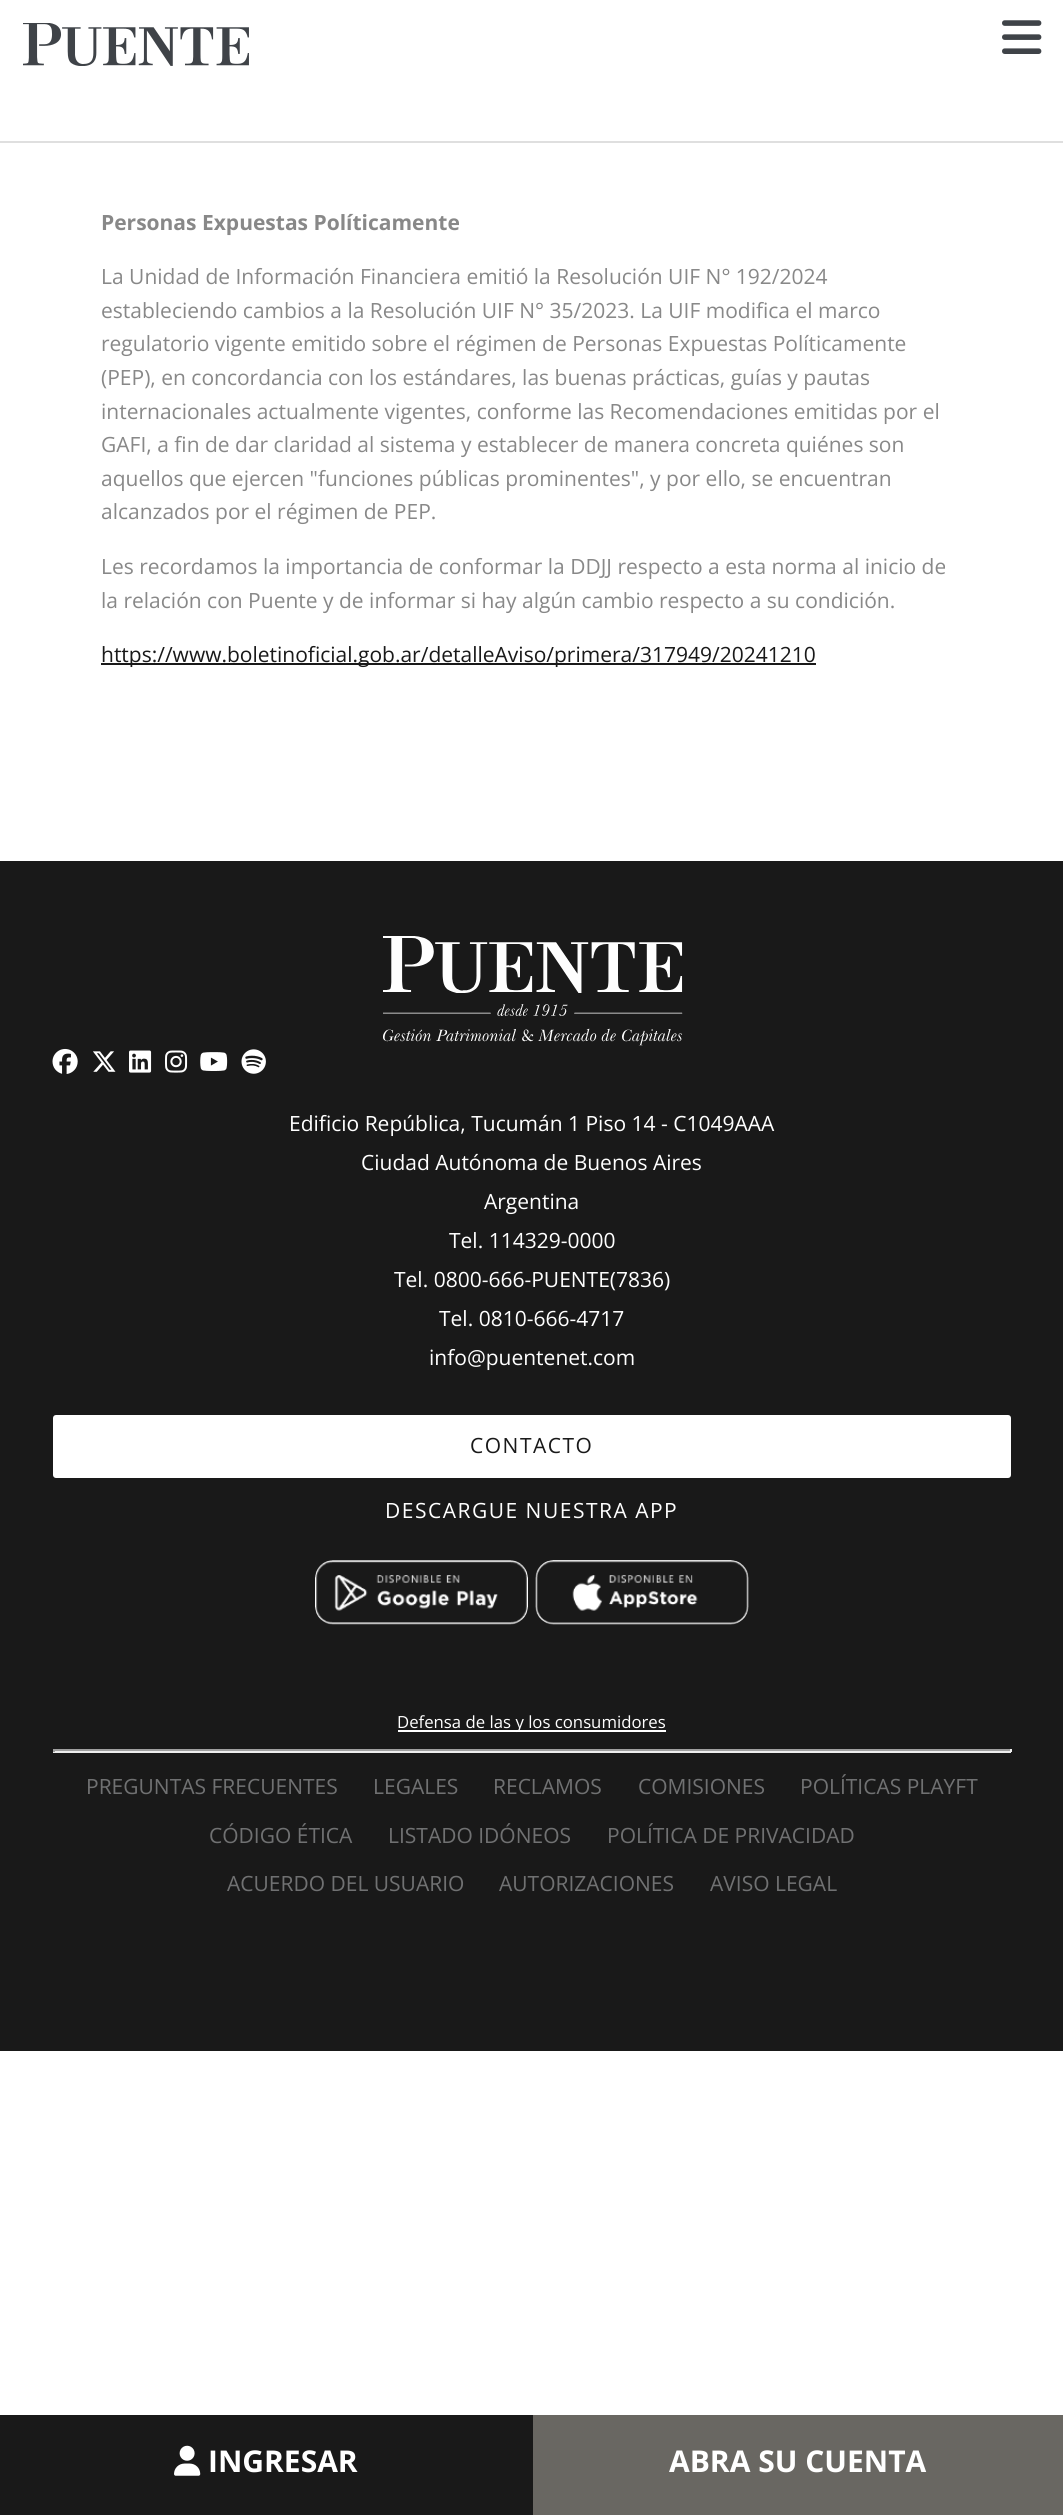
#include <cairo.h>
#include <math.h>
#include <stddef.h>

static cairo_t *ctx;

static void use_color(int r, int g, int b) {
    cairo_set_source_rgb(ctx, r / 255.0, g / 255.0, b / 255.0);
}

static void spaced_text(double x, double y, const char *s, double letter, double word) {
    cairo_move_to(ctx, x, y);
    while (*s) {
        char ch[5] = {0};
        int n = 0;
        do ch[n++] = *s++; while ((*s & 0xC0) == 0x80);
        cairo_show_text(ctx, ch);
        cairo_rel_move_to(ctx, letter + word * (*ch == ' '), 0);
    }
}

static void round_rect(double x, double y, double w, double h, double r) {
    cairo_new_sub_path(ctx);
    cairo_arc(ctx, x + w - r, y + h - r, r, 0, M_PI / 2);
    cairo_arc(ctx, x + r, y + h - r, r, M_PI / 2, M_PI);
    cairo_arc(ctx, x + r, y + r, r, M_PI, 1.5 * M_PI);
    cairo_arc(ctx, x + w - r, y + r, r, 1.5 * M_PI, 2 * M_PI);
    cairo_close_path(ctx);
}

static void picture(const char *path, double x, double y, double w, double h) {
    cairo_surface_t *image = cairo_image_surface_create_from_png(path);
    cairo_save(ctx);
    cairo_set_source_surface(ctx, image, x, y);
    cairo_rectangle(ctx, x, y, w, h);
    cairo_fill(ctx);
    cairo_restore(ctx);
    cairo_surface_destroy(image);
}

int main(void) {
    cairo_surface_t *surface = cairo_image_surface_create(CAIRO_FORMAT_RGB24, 1063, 2515);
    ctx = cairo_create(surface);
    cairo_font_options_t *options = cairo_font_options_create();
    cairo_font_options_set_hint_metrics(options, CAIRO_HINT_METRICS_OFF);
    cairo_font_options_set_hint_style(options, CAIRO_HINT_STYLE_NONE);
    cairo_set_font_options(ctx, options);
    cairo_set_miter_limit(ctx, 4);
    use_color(255, 255, 255);
    cairo_paint(ctx);
    use_color(223, 223, 223);
    cairo_rectangle(ctx, 0, 141, 1063, 2);
    cairo_fill(ctx);
    picture("img1.png", 23, 23, 226, 43);
    picture("img2.png", 1002, 20, 40, 34);
    cairo_select_font_face(ctx, "Open Sans", CAIRO_FONT_SLANT_NORMAL, CAIRO_FONT_WEIGHT_BOLD);
    cairo_set_font_size(ctx, 21);
    use_color(136, 136, 136);
    cairo_move_to(ctx, 101, 230);
    cairo_show_text(ctx, "Personas Expuestas Políticamente");
    cairo_select_font_face(ctx, "Open Sans", CAIRO_FONT_SLANT_NORMAL, CAIRO_FONT_WEIGHT_NORMAL);
    cairo_move_to(ctx, 101, 284);
    cairo_show_text(ctx, "La Unidad de Información Financiera emitió la Resolución UIF N° 192/2024");
    cairo_move_to(ctx, 101, 318);
    cairo_show_text(ctx, "estableciendo cambios a la Resolución UIF N° 35/2023. La UIF modifica el marco");
    cairo_move_to(ctx, 101, 351);
    cairo_show_text(ctx, "regulatorio vigente emitido sobre el régimen de Personas Expuestas Políticamente");
    cairo_move_to(ctx, 101, 385);
    cairo_show_text(ctx, "(PEP), en concordancia con los estándares, las buenas prácticas, guías y pautas");
    cairo_move_to(ctx, 101, 419);
    cairo_show_text(ctx, "internacionales actualmente vigentes, conforme las Recomendaciones emitidas por el");
    cairo_move_to(ctx, 101, 452);
    cairo_show_text(ctx, "GAFI, a fin de dar claridad al sistema y establecer de manera concreta quiénes son");
    cairo_move_to(ctx, 101, 486);
    cairo_show_text(ctx, "aquellos que ejercen \"funciones públicas prominentes\", y por ello, se encuentran");
    cairo_move_to(ctx, 101, 519);
    cairo_show_text(ctx, "alcanzados por el régimen de PEP.");
    cairo_move_to(ctx, 101, 574);
    cairo_show_text(ctx, "Les recordamos la importancia de conformar la DDJJ respecto a esta norma al inicio de");
    cairo_move_to(ctx, 101, 608);
    cairo_show_text(ctx, "la relación con Puente y de informar si hay algún cambio respecto a su condición.");
    use_color(25, 25, 25);
    cairo_rectangle(ctx, 101, 663, 715, 2);
    cairo_fill(ctx);
    cairo_move_to(ctx, 101, 662);
    cairo_show_text(ctx, "https://www.boletinoficial.gob.ar/detalleAviso/primera/317949/20241210");
    cairo_rectangle(ctx, 0, 2415, 533, 100);
    cairo_fill(ctx);
    picture("img3.png", 174, 2445, 27, 31);
    cairo_select_font_face(ctx, "Open Sans", CAIRO_FONT_SLANT_NORMAL, CAIRO_FONT_WEIGHT_BOLD);
    cairo_set_font_size(ctx, 30);
    use_color(255, 255, 255);
    cairo_move_to(ctx, 208, 2472);
    cairo_show_text(ctx, "INGRESAR");
    use_color(105, 103, 98);
    cairo_rectangle(ctx, 533, 2415, 530, 100);
    cairo_fill(ctx);
    use_color(255, 255, 255);
    cairo_move_to(ctx, 669, 2472);
    cairo_show_text(ctx, "ABRA SU CUENTA");
    use_color(25, 25, 25);
    cairo_rectangle(ctx, 0, 861, 1063, 1190);
    cairo_fill(ctx);
    picture("img4.png", 383, 936, 300, 110);
    picture("img5.png", 52, 1048, 26, 26);
    picture("img6.png", 93, 1051, 23, 21);
    picture("img7.png", 129, 1050, 23, 23);
    picture("img8.png", 165, 1050, 23, 23);
    picture("img9.png", 200, 1052, 28, 19);
    picture("img10.png", 241, 1049, 25, 25);
    cairo_select_font_face(ctx, "Open Sans", CAIRO_FONT_SLANT_NORMAL, CAIRO_FONT_WEIGHT_NORMAL);
    cairo_set_font_size(ctx, 21);
    use_color(255, 255, 255);
    cairo_move_to(ctx, 289, 1131);
    cairo_show_text(ctx, "Edificio República, Tucumán 1 Piso 14 - C1049AAA");
    cairo_move_to(ctx, 361, 1170);
    cairo_show_text(ctx, "Ciudad Autónoma de Buenos Aires");
    cairo_move_to(ctx, 484, 1209);
    cairo_show_text(ctx, "Argentina");
    cairo_move_to(ctx, 449, 1248);
    cairo_show_text(ctx, "Tel. 114329-0000");
    cairo_move_to(ctx, 394, 1287);
    cairo_show_text(ctx, "Tel. 0800-666-PUENTE(7836)");
    cairo_move_to(ctx, 439, 1326);
    cairo_show_text(ctx, "Tel. 0810-666-4717");
    cairo_move_to(ctx, 429, 1365);
    cairo_show_text(ctx, "info@puentenet.com");
    round_rect(53, 1415, 958, 63, 3);
    cairo_fill(ctx);
    use_color(25, 25, 25);
    spaced_text(470, 1453, "CONTACTO", 1.5, 0);
    use_color(255, 255, 255);
    spaced_text(385, 1518, "DESCARGUE NUESTRA APP", 1.5, 0);
    picture("img11.png", 315, 1560, 213, 65);
    picture("img12.png", 535, 1560, 214, 65);
    cairo_rectangle(ctx, 398, 1730, 268, 2);
    cairo_fill(ctx);
    cairo_set_font_size(ctx, 16.75);
    cairo_move_to(ctx, 397, 1728);
    cairo_show_text(ctx, "Defensa de las y los consumidores");
    use_color(159, 159, 159);
    cairo_rectangle(ctx, 53, 1749, 958, 2);
    cairo_fill(ctx);
    use_color(238, 238, 238);
    cairo_rectangle(ctx, 1010, 1749, 2, 3);
    cairo_fill(ctx);
    cairo_rectangle(ctx, 53, 1751, 958, 2);
    cairo_fill(ctx);
    use_color(159, 159, 159);
    cairo_rectangle(ctx, 53, 1749, 2, 3);
    cairo_fill(ctx);
    cairo_set_font_size(ctx, 21);
    use_color(112, 113, 114);
    cairo_move_to(ctx, 86, 1794);
    cairo_show_text(ctx, "PREGUNTAS FRECUENTES");
    cairo_move_to(ctx, 373, 1794);
    cairo_show_text(ctx, "LEGALES");
    cairo_move_to(ctx, 493, 1794);
    cairo_show_text(ctx, "RECLAMOS");
    cairo_move_to(ctx, 638, 1794);
    cairo_show_text(ctx, "COMISIONES");
    cairo_move_to(ctx, 800, 1794);
    cairo_show_text(ctx, "POLÍTICAS PLAYFT");
    cairo_move_to(ctx, 209, 1843);
    cairo_show_text(ctx, "CÓDIGO ÉTICA");
    cairo_move_to(ctx, 388, 1843);
    cairo_show_text(ctx, "LISTADO IDÓNEOS");
    cairo_move_to(ctx, 607, 1843);
    cairo_show_text(ctx, "POLÍTICA DE PRIVACIDAD");
    cairo_move_to(ctx, 227, 1891);
    cairo_show_text(ctx, "ACUERDO DEL USUARIO");
    cairo_move_to(ctx, 499, 1891);
    cairo_show_text(ctx, "AUTORIZACIONES");
    cairo_move_to(ctx, 710, 1891);
    cairo_show_text(ctx, "AVISO LEGAL");
    cairo_surface_write_to_png(surface, "result.png");
    cairo_font_options_destroy(options);
    cairo_destroy(ctx);
    cairo_surface_destroy(surface);
    return 0;
}
